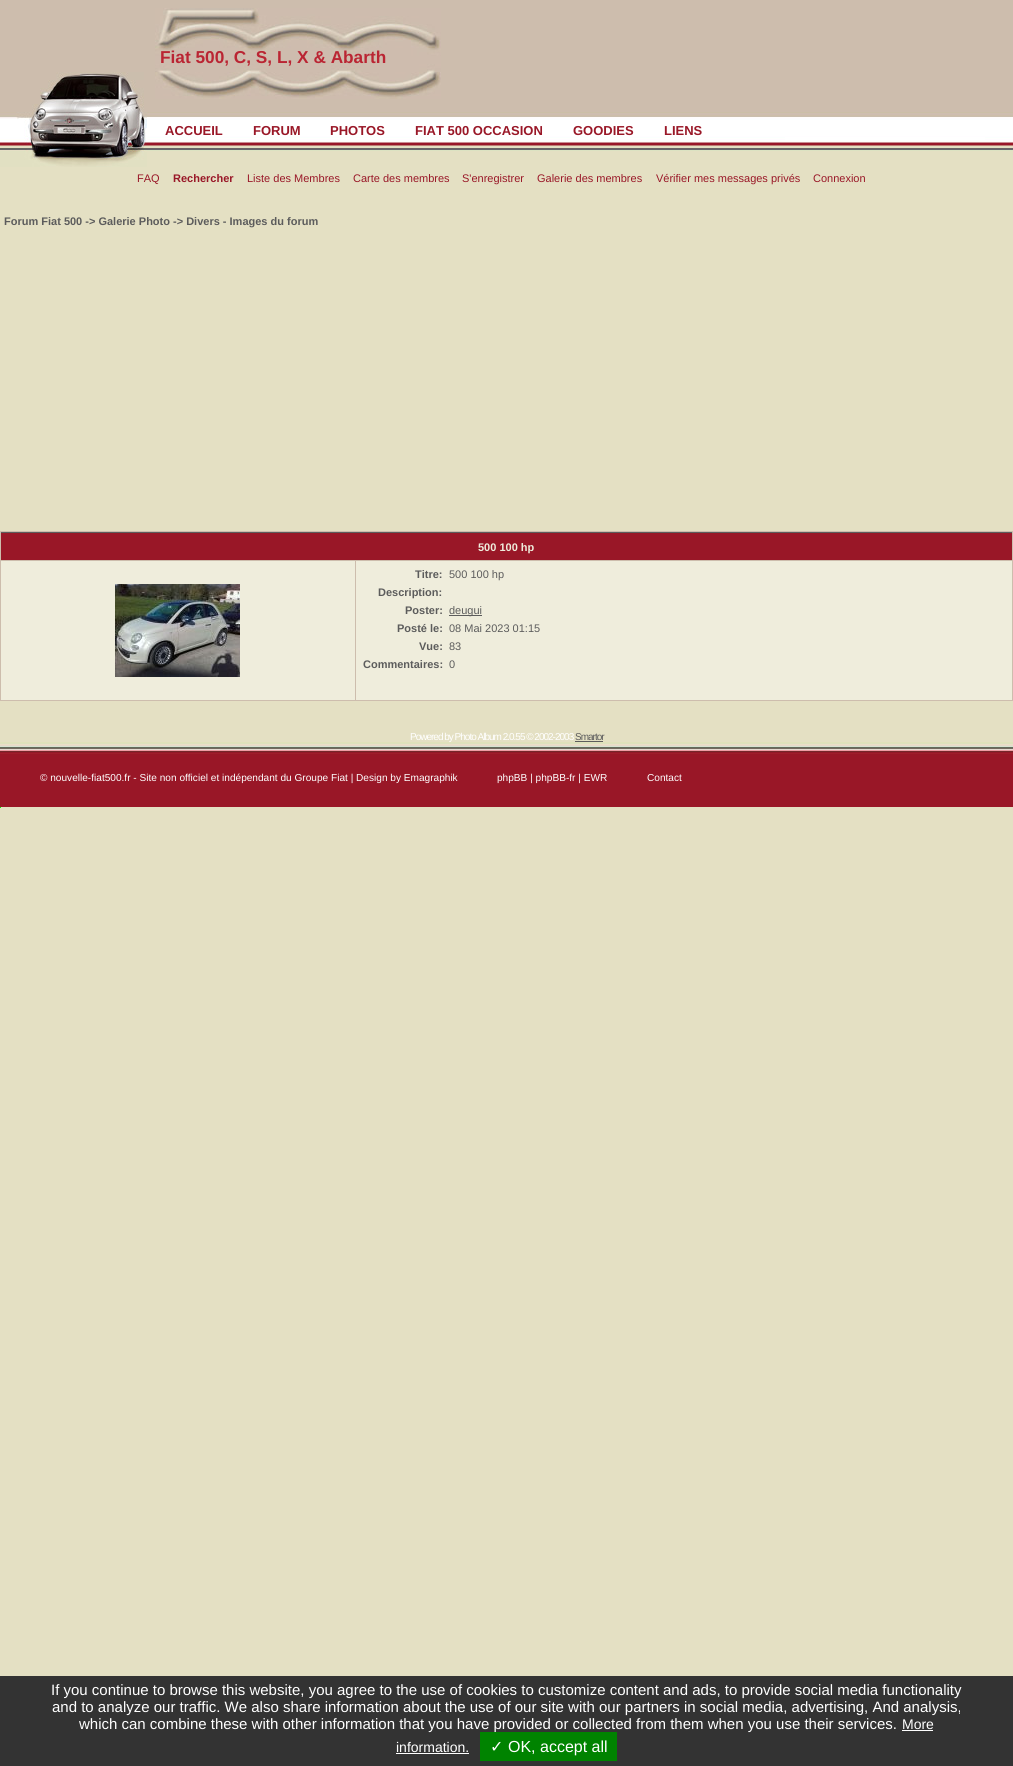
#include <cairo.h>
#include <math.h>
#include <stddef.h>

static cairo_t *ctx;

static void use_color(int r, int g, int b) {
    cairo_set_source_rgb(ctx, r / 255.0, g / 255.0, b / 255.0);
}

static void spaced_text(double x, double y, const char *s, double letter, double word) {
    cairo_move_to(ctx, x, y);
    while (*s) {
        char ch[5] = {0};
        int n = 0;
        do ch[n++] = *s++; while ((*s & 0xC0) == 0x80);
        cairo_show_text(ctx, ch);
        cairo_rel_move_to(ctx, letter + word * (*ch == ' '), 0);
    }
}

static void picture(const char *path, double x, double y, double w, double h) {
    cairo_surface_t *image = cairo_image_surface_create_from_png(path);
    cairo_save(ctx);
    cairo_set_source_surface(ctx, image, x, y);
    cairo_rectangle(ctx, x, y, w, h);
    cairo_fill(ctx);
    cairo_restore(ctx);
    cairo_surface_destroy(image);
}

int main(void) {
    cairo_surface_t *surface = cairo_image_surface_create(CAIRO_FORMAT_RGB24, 1013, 1766);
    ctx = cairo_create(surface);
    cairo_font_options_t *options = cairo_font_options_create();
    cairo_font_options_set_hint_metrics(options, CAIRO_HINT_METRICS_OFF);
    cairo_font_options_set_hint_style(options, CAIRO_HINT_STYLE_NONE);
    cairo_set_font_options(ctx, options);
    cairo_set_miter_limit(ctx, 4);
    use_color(228, 224, 195);
    cairo_paint(ctx);
    picture("img1.png", 0, 0, 1013, 151);
    picture("img2.png", 155, 8, 286, 91);
    cairo_select_font_face(ctx, "Liberation Sans", CAIRO_FONT_SLANT_NORMAL, CAIRO_FONT_WEIGHT_BOLD);
    cairo_set_font_size(ctx, 17.25);
    use_color(186, 37, 51);
    cairo_move_to(ctx, 160, 63);
    cairo_show_text(ctx, "Fiat 500, C, S, L, X & Abarth");
    picture("img3.png", 0, 72, 147, 95);
    cairo_set_font_size(ctx, 13);
    use_color(153, 23, 39);
    cairo_move_to(ctx, 165, 135);
    cairo_show_text(ctx, "ACCUEIL");
    cairo_move_to(ctx, 253, 135);
    cairo_show_text(ctx, "FORUM");
    cairo_move_to(ctx, 330, 135);
    cairo_show_text(ctx, "PHOTOS");
    cairo_move_to(ctx, 415, 135);
    cairo_show_text(ctx, "FIAT 500 OCCASION");
    cairo_move_to(ctx, 573, 135);
    cairo_show_text(ctx, "GOODIES");
    cairo_move_to(ctx, 664, 135);
    cairo_show_text(ctx, "LIENS");
    use_color(255, 255, 255);
    cairo_rectangle(ctx, 785, 137, 200, 3);
    cairo_fill(ctx);
    cairo_select_font_face(ctx, "Liberation Sans", CAIRO_FONT_SLANT_NORMAL, CAIRO_FONT_WEIGHT_NORMAL);
    cairo_set_font_size(ctx, 11);
    use_color(153, 23, 39);
    cairo_move_to(ctx, 137, 182);
    cairo_show_text(ctx, "FAQ");
    cairo_select_font_face(ctx, "Liberation Sans", CAIRO_FONT_SLANT_NORMAL, CAIRO_FONT_WEIGHT_BOLD);
    cairo_move_to(ctx, 173, 182);
    cairo_show_text(ctx, "Rechercher");
    cairo_select_font_face(ctx, "Liberation Sans", CAIRO_FONT_SLANT_NORMAL, CAIRO_FONT_WEIGHT_NORMAL);
    cairo_move_to(ctx, 247, 182);
    cairo_show_text(ctx, "Liste des Membres");
    cairo_move_to(ctx, 353, 182);
    cairo_show_text(ctx, "Carte des membres");
    cairo_move_to(ctx, 462, 182);
    cairo_show_text(ctx, "S'enregistrer");
    cairo_move_to(ctx, 537, 182);
    cairo_show_text(ctx, "Galerie des membres");
    cairo_move_to(ctx, 656, 182);
    cairo_show_text(ctx, "Vérifier mes messages privés");
    cairo_move_to(ctx, 813, 182);
    cairo_show_text(ctx, "Connexion");
    cairo_select_font_face(ctx, "Liberation Sans", CAIRO_FONT_SLANT_NORMAL, CAIRO_FONT_WEIGHT_BOLD);
    use_color(92, 92, 92);
    cairo_move_to(ctx, 4, 225);
    cairo_show_text(ctx, "Forum Fiat 500 -> Galerie Photo -> Divers - Images du forum");
    use_color(205, 189, 173);
    cairo_rectangle(ctx, 0, 531, 1013, 170);
    cairo_fill(ctx);
    use_color(153, 23, 39);
    cairo_rectangle(ctx, 1, 533, 1011, 27);
    cairo_fill(ctx);
    use_color(92, 92, 92);
    cairo_rectangle(ctx, 1, 532, 1011, 1);
    cairo_fill(ctx);
    use_color(239, 237, 220);
    cairo_move_to(ctx, 478, 551);
    cairo_show_text(ctx, "500 100 hp");
    cairo_rectangle(ctx, 1, 561, 354, 139);
    cairo_fill(ctx);
    picture("img4.png", 115, 584, 125, 93);
    cairo_rectangle(ctx, 356, 561, 656, 139);
    cairo_fill(ctx);
    use_color(92, 92, 92);
    cairo_move_to(ctx, 415, 578);
    cairo_show_text(ctx, "Titre:");
    cairo_select_font_face(ctx, "Liberation Sans", CAIRO_FONT_SLANT_NORMAL, CAIRO_FONT_WEIGHT_NORMAL);
    cairo_move_to(ctx, 449, 578);
    cairo_show_text(ctx, "500 100 hp");
    cairo_select_font_face(ctx, "Liberation Sans", CAIRO_FONT_SLANT_NORMAL, CAIRO_FONT_WEIGHT_BOLD);
    cairo_move_to(ctx, 378, 596);
    cairo_show_text(ctx, "Description:");
    cairo_move_to(ctx, 405, 614);
    cairo_show_text(ctx, "Poster:");
    cairo_rectangle(ctx, 449, 615, 33, 1);
    cairo_fill(ctx);
    cairo_select_font_face(ctx, "Liberation Sans", CAIRO_FONT_SLANT_NORMAL, CAIRO_FONT_WEIGHT_NORMAL);
    cairo_move_to(ctx, 449, 614);
    cairo_show_text(ctx, "deugui");
    cairo_select_font_face(ctx, "Liberation Sans", CAIRO_FONT_SLANT_NORMAL, CAIRO_FONT_WEIGHT_BOLD);
    cairo_move_to(ctx, 397, 632);
    cairo_show_text(ctx, "Posté le:");
    cairo_select_font_face(ctx, "Liberation Sans", CAIRO_FONT_SLANT_NORMAL, CAIRO_FONT_WEIGHT_NORMAL);
    cairo_move_to(ctx, 449, 632);
    cairo_show_text(ctx, "08 Mai 2023 01:15");
    cairo_select_font_face(ctx, "Liberation Sans", CAIRO_FONT_SLANT_NORMAL, CAIRO_FONT_WEIGHT_BOLD);
    cairo_move_to(ctx, 419, 650);
    cairo_show_text(ctx, "Vue:");
    cairo_select_font_face(ctx, "Liberation Sans", CAIRO_FONT_SLANT_NORMAL, CAIRO_FONT_WEIGHT_NORMAL);
    cairo_move_to(ctx, 449, 650);
    cairo_show_text(ctx, "83");
    cairo_select_font_face(ctx, "Liberation Sans", CAIRO_FONT_SLANT_NORMAL, CAIRO_FONT_WEIGHT_BOLD);
    cairo_move_to(ctx, 363, 668);
    cairo_show_text(ctx, "Commentaires:");
    cairo_select_font_face(ctx, "Liberation Sans", CAIRO_FONT_SLANT_NORMAL, CAIRO_FONT_WEIGHT_NORMAL);
    cairo_move_to(ctx, 449, 668);
    cairo_show_text(ctx, "0");
    picture("img5.png", 0, 742, 1013, 12);
    cairo_set_font_size(ctx, 10);
    use_color(255, 255, 255);
    spaced_text(410, 740, "Powered by Photo Album 2.0.55 © 2002-2003", -1, 0);
    use_color(92, 92, 92);
    spaced_text(575, 740, "Smartor", -1, 0);
    cairo_rectangle(ctx, 575, 741, 28, 1);
    cairo_fill(ctx);
    use_color(153, 23, 39);
    cairo_rectangle(ctx, 0, 754, 1013, 53);
    cairo_fill(ctx);
    cairo_set_font_size(ctx, 10.1);
    use_color(255, 255, 255);
    cairo_move_to(ctx, 40, 781);
    cairo_show_text(ctx, "© nouvelle-fiat500.fr - Site non officiel et indépendant du Groupe Fiat | Design by Emagraphik");
    cairo_move_to(ctx, 497, 781);
    cairo_show_text(ctx, "phpBB | phpBB-fr | EWR");
    cairo_move_to(ctx, 647, 781);
    cairo_show_text(ctx, "Contact");
    use_color(0, 255, 0);
    cairo_rectangle(ctx, 0, 807, 1, 1);
    cairo_fill(ctx);
    use_color(51, 51, 51);
    cairo_rectangle(ctx, 0, 1676, 1013, 90);
    cairo_fill(ctx);
    cairo_set_font_size(ctx, 15);
    use_color(255, 255, 255);
    cairo_move_to(ctx, 51, 1695);
    cairo_show_text(ctx, "If you continue to browse this website, you agree to the use of cookies to customize content and ads, to provide social media functionality");
    cairo_move_to(ctx, 52, 1712);
    cairo_show_text(ctx, "and to analyze our traffic. We also share information about the use of our site with our partners in social media, advertising, And analysis,");
    cairo_move_to(ctx, 79, 1729);
    cairo_show_text(ctx, "which can combine these with other information that you have provided or collected from them when you use their services.");
    cairo_set_font_size(ctx, 14);
    cairo_move_to(ctx, 902, 1729);
    cairo_show_text(ctx, "More");
    cairo_rectangle(ctx, 902, 1730, 31, 1);
    cairo_fill(ctx);
    cairo_move_to(ctx, 396, 1752);
    cairo_show_text(ctx, "information.");
    cairo_rectangle(ctx, 396, 1753, 73, 1);
    cairo_fill(ctx);
    use_color(0, 131, 0);
    cairo_rectangle(ctx, 480, 1732, 137, 29);
    cairo_fill(ctx);
    cairo_select_font_face(ctx, "DejaVu Sans", CAIRO_FONT_SLANT_NORMAL, CAIRO_FONT_WEIGHT_NORMAL);
    cairo_set_font_size(ctx, 16);
    use_color(255, 255, 255);
    cairo_move_to(ctx, 490, 1752);
    cairo_show_text(ctx, "✓");
    cairo_select_font_face(ctx, "Liberation Sans", CAIRO_FONT_SLANT_NORMAL, CAIRO_FONT_WEIGHT_NORMAL);
    cairo_move_to(ctx, 508, 1752);
    cairo_show_text(ctx, "OK, accept all");
    cairo_surface_write_to_png(surface, "result.png");
    cairo_font_options_destroy(options);
    cairo_destroy(ctx);
    cairo_surface_destroy(surface);
    return 0;
}
